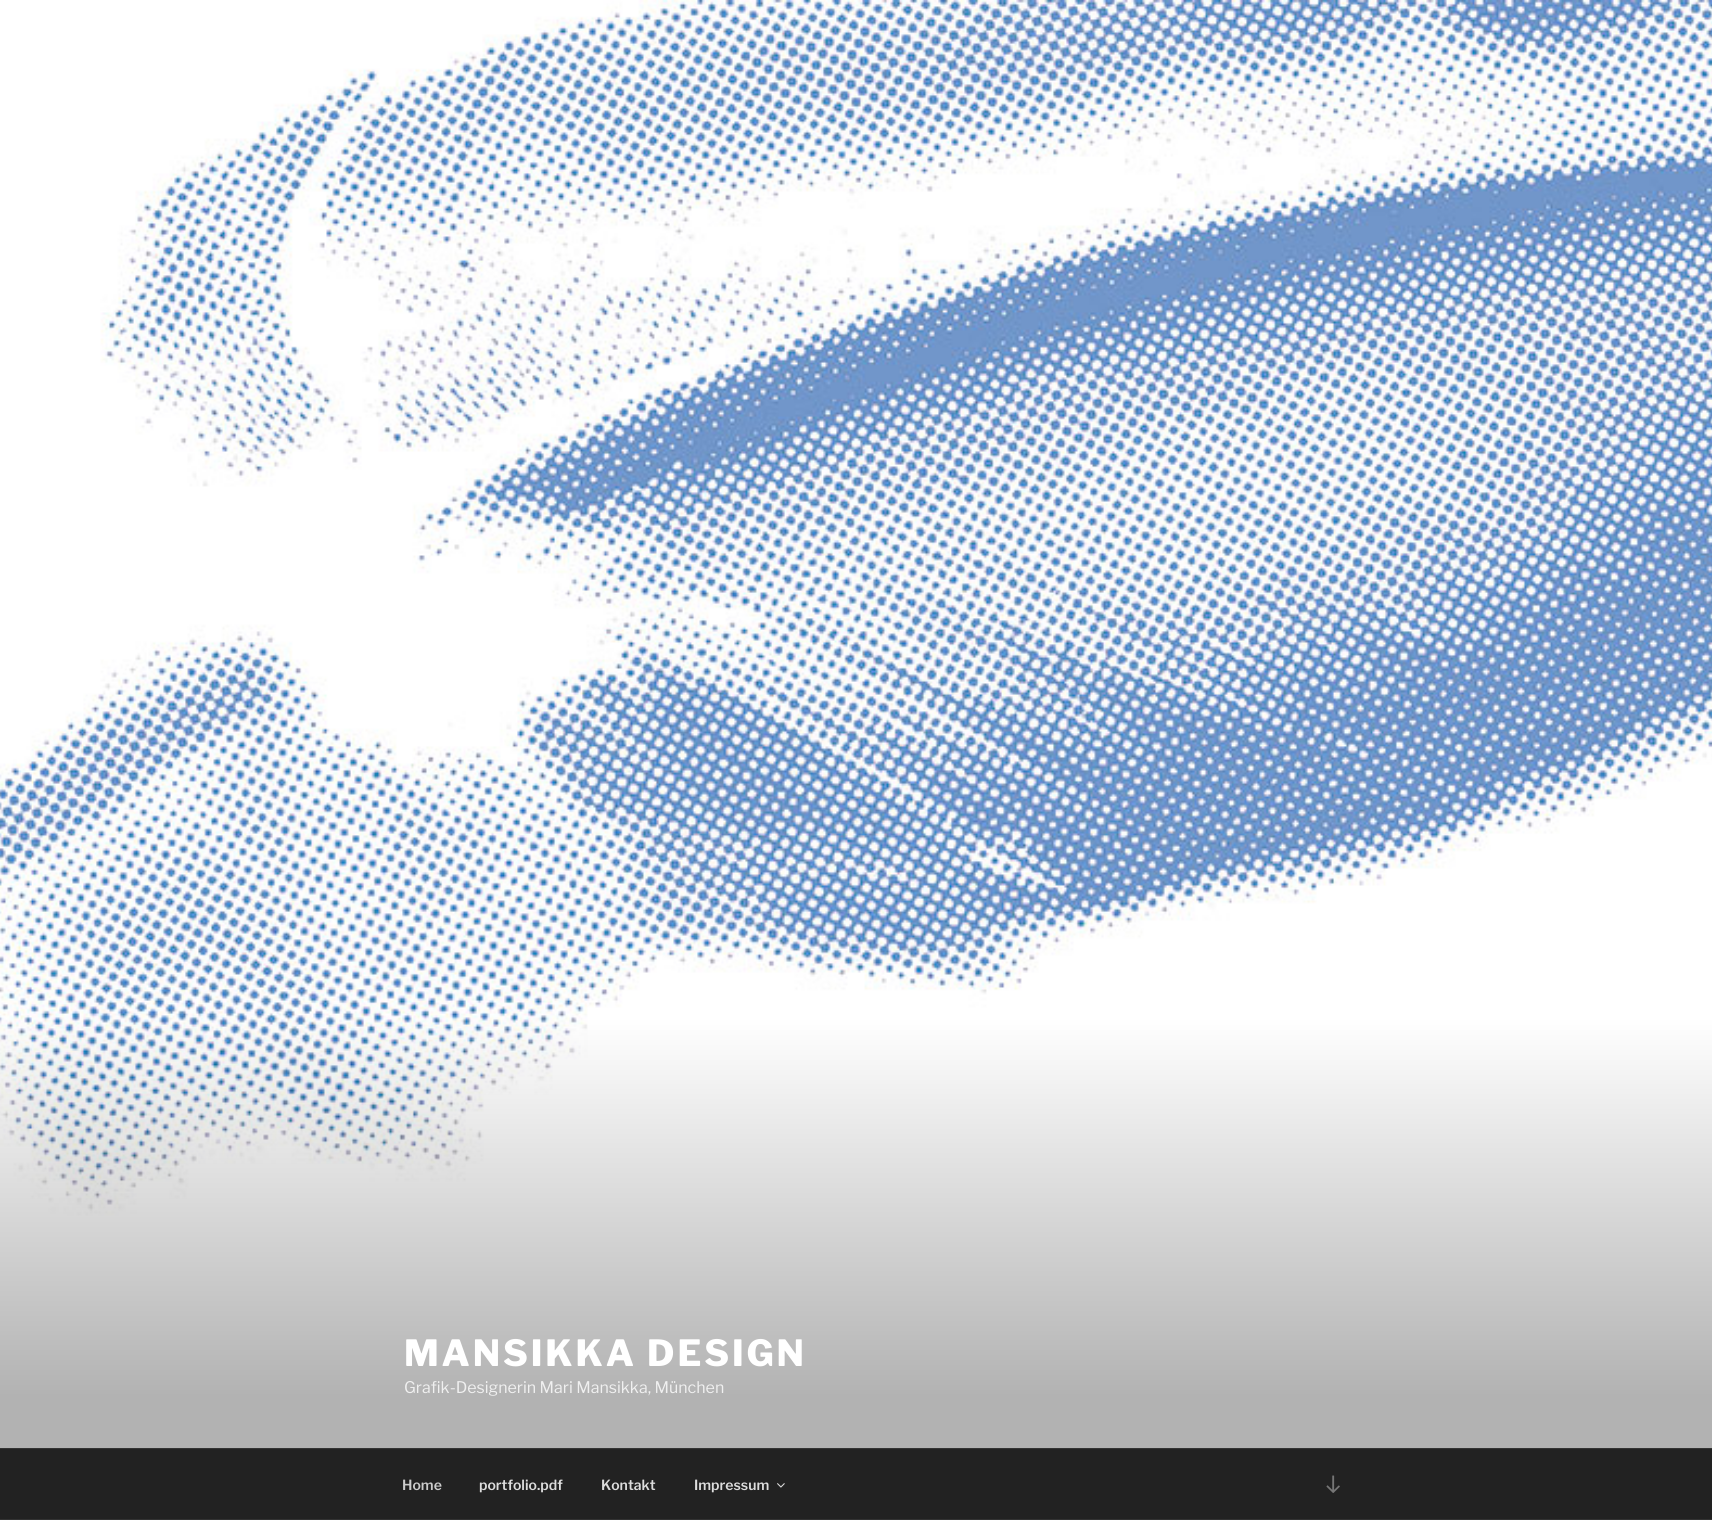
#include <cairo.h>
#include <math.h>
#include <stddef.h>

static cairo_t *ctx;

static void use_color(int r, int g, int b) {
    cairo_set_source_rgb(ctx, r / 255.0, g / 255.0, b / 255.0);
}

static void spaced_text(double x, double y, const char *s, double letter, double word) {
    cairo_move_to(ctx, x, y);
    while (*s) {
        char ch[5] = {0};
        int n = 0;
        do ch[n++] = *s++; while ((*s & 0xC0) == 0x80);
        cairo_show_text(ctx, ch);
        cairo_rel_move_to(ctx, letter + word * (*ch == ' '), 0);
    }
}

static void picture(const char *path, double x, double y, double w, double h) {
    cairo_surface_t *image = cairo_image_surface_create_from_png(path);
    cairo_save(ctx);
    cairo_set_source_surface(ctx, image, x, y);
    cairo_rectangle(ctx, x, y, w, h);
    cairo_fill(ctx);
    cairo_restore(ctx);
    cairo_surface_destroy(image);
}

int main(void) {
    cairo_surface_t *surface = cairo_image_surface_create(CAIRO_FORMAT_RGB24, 1712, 1520);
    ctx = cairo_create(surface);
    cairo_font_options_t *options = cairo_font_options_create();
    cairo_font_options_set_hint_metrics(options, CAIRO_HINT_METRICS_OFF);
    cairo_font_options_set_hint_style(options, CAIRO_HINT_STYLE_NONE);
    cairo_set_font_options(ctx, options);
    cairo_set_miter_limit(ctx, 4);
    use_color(255, 255, 255);
    cairo_paint(ctx);
    picture("img1.png", 0, 0, 1712, 1448);
    cairo_select_font_face(ctx, "Libre Franklin Thin", CAIRO_FONT_SLANT_NORMAL, CAIRO_FONT_WEIGHT_NORMAL);
    cairo_set_font_size(ctx, 36);
    use_color(255, 255, 255);
    spaced_text(404, 1366, "MANSIKKA DESIGN", 2.9, 0);
    cairo_select_font_face(ctx, "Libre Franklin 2 Thin", CAIRO_FONT_SLANT_NORMAL, CAIRO_FONT_WEIGHT_NORMAL);
    cairo_set_font_size(ctx, 16);
    use_color(240, 240, 240);
    cairo_move_to(ctx, 404, 1393);
    cairo_show_text(ctx, "Grafik-Designerin Mari Mansikka, München");
    use_color(34, 34, 34);
    cairo_rectangle(ctx, 0, 1449, 1712, 70);
    cairo_fill(ctx);
    use_color(51, 51, 51);
    cairo_rectangle(ctx, 0, 1448, 1712, 1);
    cairo_fill(ctx);
    cairo_rectangle(ctx, 0, 1519, 1712, 1);
    cairo_fill(ctx);
    cairo_select_font_face(ctx, "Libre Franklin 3 Thin", CAIRO_FONT_SLANT_NORMAL, CAIRO_FONT_WEIGHT_NORMAL);
    cairo_set_font_size(ctx, 14);
    use_color(204, 204, 204);
    cairo_move_to(ctx, 402, 1490);
    cairo_show_text(ctx, "Home");
    use_color(221, 221, 221);
    cairo_move_to(ctx, 479, 1490);
    cairo_show_text(ctx, "portfolio.pdf");
    cairo_move_to(ctx, 601, 1490);
    cairo_show_text(ctx, "Kontakt");
    cairo_move_to(ctx, 694, 1490);
    cairo_show_text(ctx, "Impressum");
    picture("img2.png", 777, 1483, 8, 5);
    picture("img3.png", 1326, 1475, 14, 18);
    cairo_surface_write_to_png(surface, "result.png");
    cairo_font_options_destroy(options);
    cairo_destroy(ctx);
    cairo_surface_destroy(surface);
    return 0;
}
